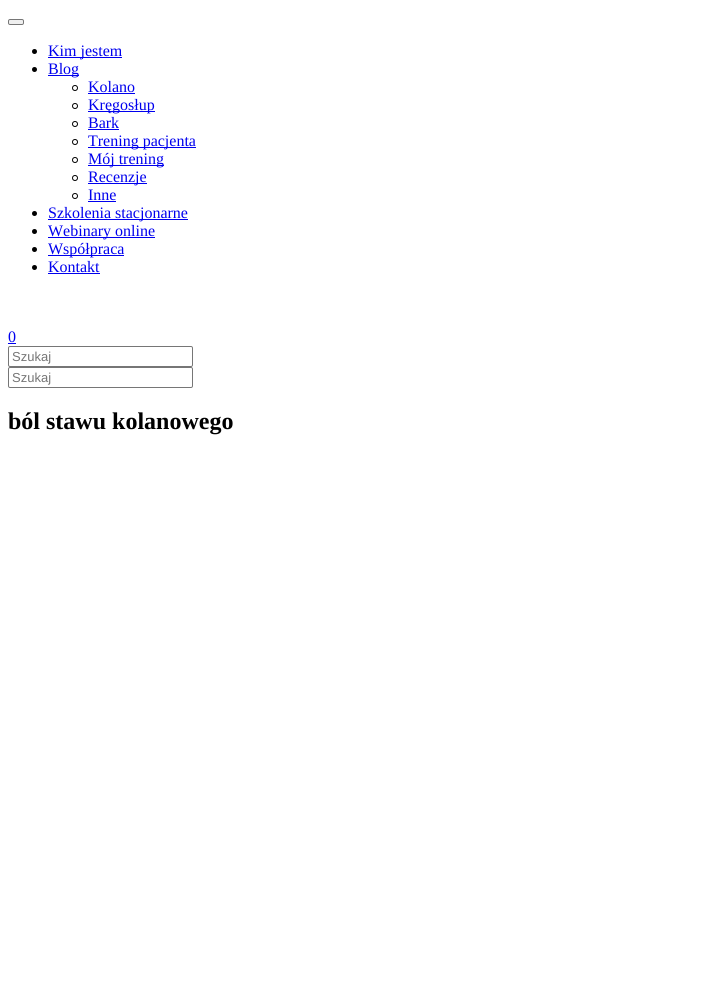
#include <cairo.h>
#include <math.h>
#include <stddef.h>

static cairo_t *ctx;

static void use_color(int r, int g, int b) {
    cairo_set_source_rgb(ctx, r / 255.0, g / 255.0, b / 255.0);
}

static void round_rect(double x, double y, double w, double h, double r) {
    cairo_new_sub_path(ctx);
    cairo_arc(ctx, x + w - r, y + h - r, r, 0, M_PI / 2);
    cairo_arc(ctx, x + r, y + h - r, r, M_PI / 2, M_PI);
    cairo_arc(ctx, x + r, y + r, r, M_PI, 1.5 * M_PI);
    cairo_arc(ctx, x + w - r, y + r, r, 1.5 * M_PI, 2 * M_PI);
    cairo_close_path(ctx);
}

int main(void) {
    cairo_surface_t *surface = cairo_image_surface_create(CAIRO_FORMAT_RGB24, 718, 989);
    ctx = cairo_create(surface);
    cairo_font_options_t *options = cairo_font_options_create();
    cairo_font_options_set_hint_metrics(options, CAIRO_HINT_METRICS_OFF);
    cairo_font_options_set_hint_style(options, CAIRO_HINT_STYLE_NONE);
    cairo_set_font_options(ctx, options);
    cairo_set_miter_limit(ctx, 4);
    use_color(255, 255, 255);
    cairo_paint(ctx);
    use_color(239, 239, 239);
    round_rect(8.5, 19.5, 15, 5, 1.5);
    cairo_fill_preserve(ctx);
    use_color(118, 118, 118);
    cairo_set_line_width(ctx, 1);
    cairo_stroke(ctx);
    use_color(0, 0, 0);
    cairo_arc(ctx, 34.5, 51.5, 2.5, 0, 2 * M_PI);
    cairo_fill(ctx);
    use_color(0, 0, 238);
    cairo_rectangle(ctx, 48, 57, 74, 1);
    cairo_fill(ctx);
    cairo_select_font_face(ctx, "Liberation Serif", CAIRO_FONT_SLANT_NORMAL, CAIRO_FONT_WEIGHT_NORMAL);
    cairo_set_font_size(ctx, 16);
    cairo_move_to(ctx, 48, 56);
    cairo_show_text(ctx, "Kim jestem");
    use_color(0, 0, 0);
    cairo_new_path(ctx);
    cairo_arc(ctx, 34.5, 69.5, 2.5, 0, 2 * M_PI);
    cairo_fill(ctx);
    use_color(0, 0, 238);
    cairo_rectangle(ctx, 48, 75, 31, 1);
    cairo_fill(ctx);
    cairo_move_to(ctx, 48, 74);
    cairo_show_text(ctx, "Blog");
    cairo_new_path(ctx);
    cairo_arc(ctx, 75, 88, 2.5, 0, 2 * M_PI);
    use_color(0, 0, 0);
    cairo_stroke(ctx);
    use_color(0, 0, 238);
    cairo_move_to(ctx, 88, 92);
    cairo_show_text(ctx, "Kolano");
    cairo_rectangle(ctx, 88, 93, 47, 1);
    cairo_fill(ctx);
    cairo_arc(ctx, 75, 106, 2.5, 0, 2 * M_PI);
    use_color(0, 0, 0);
    cairo_stroke(ctx);
    use_color(0, 0, 238);
    cairo_rectangle(ctx, 88, 111, 67, 1);
    cairo_fill(ctx);
    cairo_move_to(ctx, 88, 110);
    cairo_show_text(ctx, "Kręgosłup");
    cairo_new_path(ctx);
    cairo_arc(ctx, 75, 124, 2.5, 0, 2 * M_PI);
    use_color(0, 0, 0);
    cairo_stroke(ctx);
    use_color(0, 0, 238);
    cairo_move_to(ctx, 88, 128);
    cairo_show_text(ctx, "Bark");
    cairo_rectangle(ctx, 88, 129, 31, 1);
    cairo_fill(ctx);
    cairo_arc(ctx, 75, 142, 2.5, 0, 2 * M_PI);
    use_color(0, 0, 0);
    cairo_stroke(ctx);
    use_color(0, 0, 238);
    cairo_rectangle(ctx, 88, 147, 108, 1);
    cairo_fill(ctx);
    cairo_move_to(ctx, 88, 146);
    cairo_show_text(ctx, "Trening pacjenta");
    cairo_new_path(ctx);
    cairo_arc(ctx, 75, 160, 2.5, 0, 2 * M_PI);
    use_color(0, 0, 0);
    cairo_stroke(ctx);
    use_color(0, 0, 238);
    cairo_rectangle(ctx, 88, 165, 76, 1);
    cairo_fill(ctx);
    cairo_move_to(ctx, 88, 164);
    cairo_show_text(ctx, "Mój trening");
    cairo_new_path(ctx);
    cairo_arc(ctx, 75, 178, 2.5, 0, 2 * M_PI);
    use_color(0, 0, 0);
    cairo_stroke(ctx);
    use_color(0, 0, 238);
    cairo_rectangle(ctx, 88, 183, 59, 1);
    cairo_fill(ctx);
    cairo_move_to(ctx, 88, 182);
    cairo_show_text(ctx, "Recenzje");
    cairo_new_path(ctx);
    cairo_arc(ctx, 75, 196, 2.5, 0, 2 * M_PI);
    use_color(0, 0, 0);
    cairo_stroke(ctx);
    use_color(0, 0, 238);
    cairo_move_to(ctx, 88, 200);
    cairo_show_text(ctx, "Inne");
    cairo_rectangle(ctx, 88, 201, 28, 1);
    cairo_fill(ctx);
    use_color(0, 0, 0);
    cairo_arc(ctx, 34.5, 213.5, 2.5, 0, 2 * M_PI);
    cairo_fill(ctx);
    use_color(0, 0, 238);
    cairo_rectangle(ctx, 48, 219, 140, 1);
    cairo_fill(ctx);
    cairo_move_to(ctx, 48, 218);
    cairo_show_text(ctx, "Szkolenia stacjonarne");
    use_color(0, 0, 0);
    cairo_new_path(ctx);
    cairo_arc(ctx, 34.5, 231.5, 2.5, 0, 2 * M_PI);
    cairo_fill(ctx);
    use_color(0, 0, 238);
    cairo_rectangle(ctx, 48, 237, 107, 1);
    cairo_fill(ctx);
    cairo_move_to(ctx, 48, 236);
    cairo_show_text(ctx, "Webinary online");
    use_color(0, 0, 0);
    cairo_new_path(ctx);
    cairo_arc(ctx, 34.5, 249.5, 2.5, 0, 2 * M_PI);
    cairo_fill(ctx);
    use_color(0, 0, 238);
    cairo_rectangle(ctx, 48, 255, 76, 1);
    cairo_fill(ctx);
    cairo_move_to(ctx, 48, 254);
    cairo_show_text(ctx, "Współpraca");
    use_color(0, 0, 0);
    cairo_new_path(ctx);
    cairo_arc(ctx, 34.5, 267.5, 2.5, 0, 2 * M_PI);
    cairo_fill(ctx);
    use_color(0, 0, 238);
    cairo_move_to(ctx, 48, 272);
    cairo_show_text(ctx, "Kontakt");
    cairo_rectangle(ctx, 48, 273, 52, 1);
    cairo_fill(ctx);
    cairo_move_to(ctx, 8, 342);
    cairo_show_text(ctx, "0");
    cairo_rectangle(ctx, 8, 343, 8, 1);
    cairo_fill(ctx);
    round_rect(8.5, 346.5, 184, 20, 1.5);
    use_color(118, 118, 118);
    cairo_stroke(ctx);
    cairo_select_font_face(ctx, "Liberation Sans", CAIRO_FONT_SLANT_NORMAL, CAIRO_FONT_WEIGHT_NORMAL);
    cairo_set_font_size(ctx, 13);
    use_color(117, 117, 117);
    cairo_move_to(ctx, 12, 361);
    cairo_show_text(ctx, "Szukaj");
    round_rect(8.5, 367.5, 184, 20, 1.5);
    use_color(118, 118, 118);
    cairo_stroke(ctx);
    use_color(117, 117, 117);
    cairo_move_to(ctx, 12, 382);
    cairo_show_text(ctx, "Szukaj");
    cairo_select_font_face(ctx, "Liberation Serif", CAIRO_FONT_SLANT_NORMAL, CAIRO_FONT_WEIGHT_BOLD);
    cairo_set_font_size(ctx, 24);
    use_color(0, 0, 0);
    cairo_move_to(ctx, 8, 429);
    cairo_show_text(ctx, "ból stawu kolanowego");
    cairo_surface_write_to_png(surface, "result.png");
    cairo_font_options_destroy(options);
    cairo_destroy(ctx);
    cairo_surface_destroy(surface);
    return 0;
}
